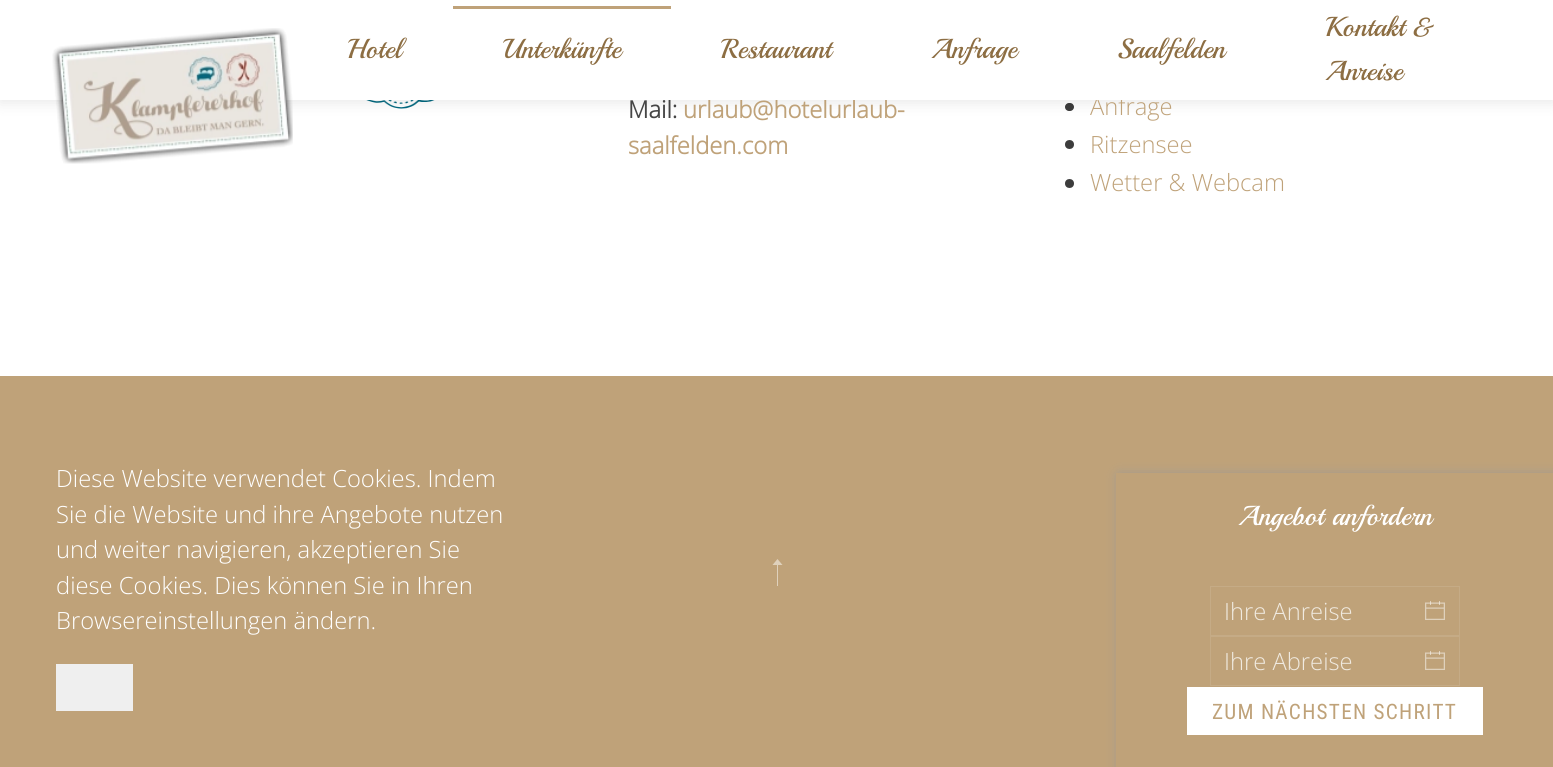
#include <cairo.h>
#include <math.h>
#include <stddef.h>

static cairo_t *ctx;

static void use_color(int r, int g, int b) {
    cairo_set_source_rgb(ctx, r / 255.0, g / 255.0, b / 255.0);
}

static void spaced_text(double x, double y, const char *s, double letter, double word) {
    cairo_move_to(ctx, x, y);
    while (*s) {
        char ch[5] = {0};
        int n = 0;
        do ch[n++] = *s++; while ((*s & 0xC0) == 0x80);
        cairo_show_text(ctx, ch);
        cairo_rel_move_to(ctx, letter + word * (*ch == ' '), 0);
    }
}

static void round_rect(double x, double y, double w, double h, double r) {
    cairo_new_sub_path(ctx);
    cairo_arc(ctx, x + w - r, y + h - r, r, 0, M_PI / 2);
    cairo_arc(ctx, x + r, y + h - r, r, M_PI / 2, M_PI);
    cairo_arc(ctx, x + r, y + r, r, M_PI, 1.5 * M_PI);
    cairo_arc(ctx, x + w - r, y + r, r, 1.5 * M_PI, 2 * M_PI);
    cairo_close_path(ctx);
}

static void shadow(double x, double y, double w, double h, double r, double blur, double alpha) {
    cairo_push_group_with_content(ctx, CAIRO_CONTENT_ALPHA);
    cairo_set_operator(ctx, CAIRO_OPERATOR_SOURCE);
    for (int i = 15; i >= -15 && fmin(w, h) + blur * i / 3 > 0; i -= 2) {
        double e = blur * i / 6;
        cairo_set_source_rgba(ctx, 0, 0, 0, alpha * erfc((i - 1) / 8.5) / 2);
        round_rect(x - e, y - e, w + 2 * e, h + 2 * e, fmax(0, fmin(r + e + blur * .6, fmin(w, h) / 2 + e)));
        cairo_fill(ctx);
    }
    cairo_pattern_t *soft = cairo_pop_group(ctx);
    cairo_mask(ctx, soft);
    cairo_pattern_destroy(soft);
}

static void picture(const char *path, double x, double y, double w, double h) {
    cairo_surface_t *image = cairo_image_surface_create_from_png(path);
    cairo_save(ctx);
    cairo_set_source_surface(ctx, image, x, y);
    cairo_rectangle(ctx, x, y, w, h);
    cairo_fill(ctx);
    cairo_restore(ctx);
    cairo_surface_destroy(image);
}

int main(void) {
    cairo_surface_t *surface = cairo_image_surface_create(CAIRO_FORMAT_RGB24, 1553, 767);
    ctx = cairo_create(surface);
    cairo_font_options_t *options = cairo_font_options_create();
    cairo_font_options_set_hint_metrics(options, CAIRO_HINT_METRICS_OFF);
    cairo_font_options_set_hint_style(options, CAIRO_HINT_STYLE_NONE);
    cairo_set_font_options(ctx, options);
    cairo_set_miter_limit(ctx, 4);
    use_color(255, 255, 255);
    cairo_paint(ctx);
    use_color(191, 162, 121);
    cairo_rectangle(ctx, 0, 376, 1553, 391);
    cairo_fill(ctx);
    cairo_select_font_face(ctx, "Open Sans Light", CAIRO_FONT_SLANT_NORMAL, CAIRO_FONT_WEIGHT_NORMAL);
    cairo_set_font_size(ctx, 23.75);
    use_color(255, 255, 255);
    cairo_move_to(ctx, 56, 487);
    cairo_show_text(ctx, "Diese Website verwendet Cookies. Indem");
    cairo_move_to(ctx, 56, 523);
    cairo_show_text(ctx, "Sie die Website und ihre Angebote nutzen");
    cairo_move_to(ctx, 56, 558);
    cairo_show_text(ctx, "und weiter navigieren, akzeptieren Sie");
    cairo_move_to(ctx, 56, 594);
    cairo_show_text(ctx, "diese Cookies. Dies können Sie in Ihren");
    cairo_move_to(ctx, 56, 629);
    cairo_show_text(ctx, "Browsereinstellungen ändern.");
    use_color(239, 239, 239);
    cairo_rectangle(ctx, 56, 664, 77, 47);
    cairo_fill(ctx);
    picture("img2.png", 366, 100, 69, 9);
    use_color(60, 60, 60);
    round_rect(1065, 103, 9, 8, 4);
    cairo_fill(ctx);
    use_color(0, 0, 0);
    shadow(0, 3, 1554, 100, 0, 7, 0.09);
    cairo_select_font_face(ctx, "Open Sans", CAIRO_FONT_SLANT_NORMAL, CAIRO_FONT_WEIGHT_BOLD);
    use_color(69, 69, 69);
    cairo_move_to(ctx, 628, 118);
    cairo_show_text(ctx, "Mail:");
    use_color(191, 162, 121);
    cairo_move_to(ctx, 683, 118);
    cairo_show_text(ctx, "urlaub@hotelurlaub-");
    cairo_select_font_face(ctx, "Open Sans Light", CAIRO_FONT_SLANT_NORMAL, CAIRO_FONT_WEIGHT_NORMAL);
    cairo_move_to(ctx, 1090, 115);
    cairo_show_text(ctx, "Anfrage");
    use_color(255, 255, 255);
    cairo_rectangle(ctx, 0, 0, 1553, 100);
    cairo_fill(ctx);
    picture("img1.png", 52, 28, 241, 136);
    cairo_select_font_face(ctx, "Playball", CAIRO_FONT_SLANT_NORMAL, CAIRO_FONT_WEIGHT_NORMAL);
    cairo_set_font_size(ctx, 27.5);
    use_color(141, 110, 67);
    cairo_move_to(ctx, 347, 58);
    cairo_show_text(ctx, "Hotel");
    use_color(191, 162, 121);
    cairo_rectangle(ctx, 453, 6, 218, 3);
    cairo_fill(ctx);
    use_color(141, 110, 67);
    cairo_move_to(ctx, 502, 58);
    cairo_show_text(ctx, "Unterkünfte");
    cairo_move_to(ctx, 721, 58);
    cairo_show_text(ctx, "Restaurant");
    cairo_move_to(ctx, 931, 58);
    cairo_show_text(ctx, "Anfrage");
    cairo_move_to(ctx, 1117, 58);
    cairo_show_text(ctx, "Saalfelden");
    cairo_move_to(ctx, 1325, 36);
    cairo_show_text(ctx, "Kontakt &");
    cairo_move_to(ctx, 1325, 80);
    cairo_show_text(ctx, "Anreise");
    cairo_select_font_face(ctx, "Open Sans", CAIRO_FONT_SLANT_NORMAL, CAIRO_FONT_WEIGHT_BOLD);
    cairo_set_font_size(ctx, 23.75);
    use_color(191, 162, 121);
    cairo_move_to(ctx, 628, 154);
    cairo_show_text(ctx, "saalfelden.com");
    use_color(60, 60, 60);
    cairo_new_path(ctx);
    cairo_arc(ctx, 1069.5, 144.5, 4.5, 0, 2 * M_PI);
    cairo_fill(ctx);
    cairo_select_font_face(ctx, "Open Sans Light", CAIRO_FONT_SLANT_NORMAL, CAIRO_FONT_WEIGHT_NORMAL);
    use_color(191, 162, 121);
    cairo_move_to(ctx, 1090, 153);
    cairo_show_text(ctx, "Ritzensee");
    use_color(60, 60, 60);
    cairo_new_path(ctx);
    cairo_arc(ctx, 1069.5, 183.5, 4.5, 0, 2 * M_PI);
    cairo_fill(ctx);
    use_color(191, 162, 121);
    cairo_move_to(ctx, 1090, 191);
    cairo_show_text(ctx, "Wetter & Webcam");
    use_color(223, 209, 188);
    cairo_new_path(ctx);
    cairo_move_to(ctx, 782.5, 565);
    cairo_line_to(ctx, 777.5, 559);
    cairo_line_to(ctx, 772.5, 565);
    cairo_line_to(ctx, 777, 565);
    cairo_line_to(ctx, 777, 586);
    cairo_line_to(ctx, 778, 586);
    cairo_line_to(ctx, 778, 565);
    cairo_close_path(ctx);
    cairo_fill(ctx);
    use_color(153, 153, 153);
    shadow(1119, 475, 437, 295, 0, 6, 1);
    use_color(191, 162, 121);
    cairo_rectangle(ctx, 1116, 473, 437, 294);
    cairo_fill(ctx);
    cairo_select_font_face(ctx, "Playball", CAIRO_FONT_SLANT_NORMAL, CAIRO_FONT_WEIGHT_NORMAL);
    cairo_set_font_size(ctx, 27.5);
    use_color(255, 255, 255);
    cairo_move_to(ctx, 1238, 525);
    cairo_show_text(ctx, "Angebot anfordern");
    cairo_rectangle(ctx, 1210.5, 586.5, 249, 49);
    use_color(197, 171, 134);
    cairo_set_line_width(ctx, 1);
    cairo_stroke(ctx);
    cairo_select_font_face(ctx, "Open Sans Light", CAIRO_FONT_SLANT_NORMAL, CAIRO_FONT_WEIGHT_NORMAL);
    cairo_set_font_size(ctx, 23.75);
    use_color(240, 234, 224);
    cairo_move_to(ctx, 1224, 620);
    cairo_show_text(ctx, "Ihre Anreise");
    picture("img3.png", 1425, 601, 20, 19);
    cairo_rectangle(ctx, 1210.5, 636.5, 249, 49);
    use_color(197, 171, 134);
    cairo_stroke(ctx);
    use_color(240, 234, 224);
    cairo_move_to(ctx, 1224, 670);
    cairo_show_text(ctx, "Ihre Abreise");
    picture("img3.png", 1425, 651, 20, 19);
    use_color(255, 255, 255);
    cairo_rectangle(ctx, 1187, 687, 296, 48);
    cairo_fill(ctx);
    cairo_select_font_face(ctx, "Roboto Condensed", CAIRO_FONT_SLANT_NORMAL, CAIRO_FONT_WEIGHT_NORMAL);
    cairo_set_font_size(ctx, 21.25);
    use_color(191, 162, 121);
    spaced_text(1212, 719, "ZUM NÄCHSTEN SCHRITT", 1.25, 0);
    cairo_surface_write_to_png(surface, "result.png");
    cairo_font_options_destroy(options);
    cairo_destroy(ctx);
    cairo_surface_destroy(surface);
    return 0;
}
